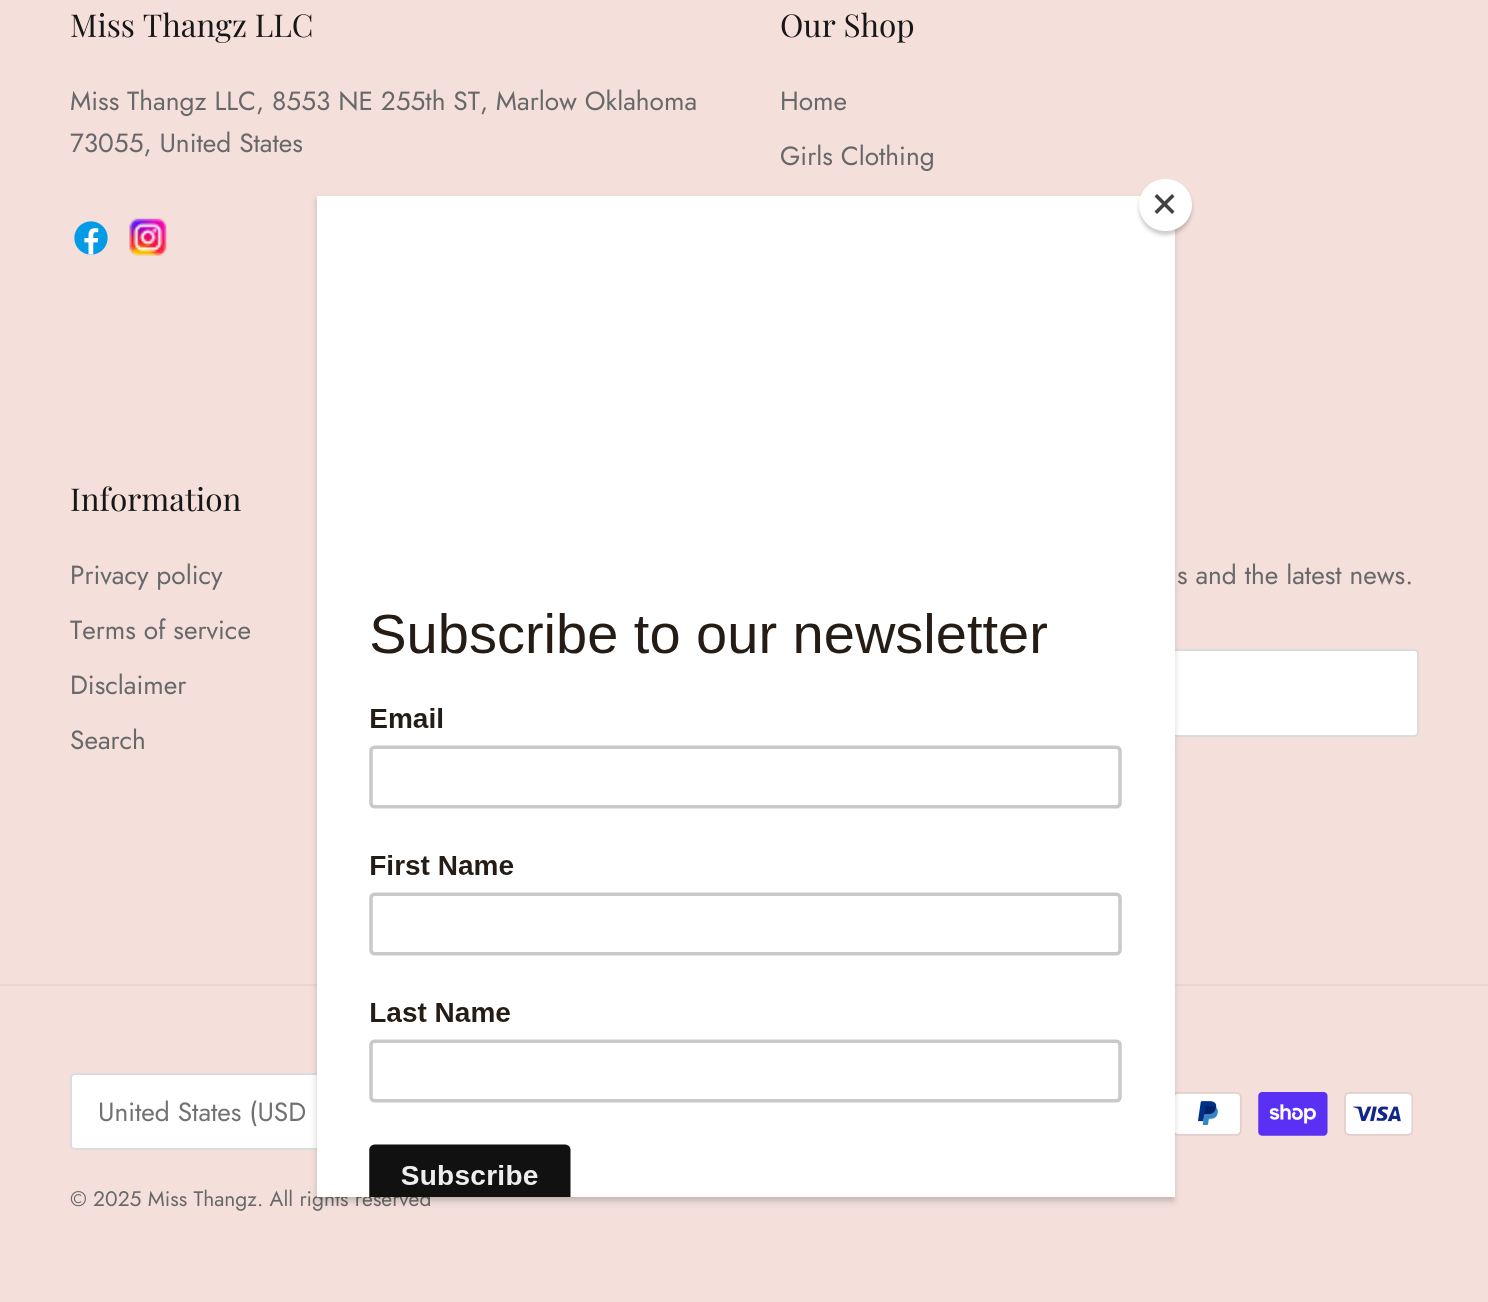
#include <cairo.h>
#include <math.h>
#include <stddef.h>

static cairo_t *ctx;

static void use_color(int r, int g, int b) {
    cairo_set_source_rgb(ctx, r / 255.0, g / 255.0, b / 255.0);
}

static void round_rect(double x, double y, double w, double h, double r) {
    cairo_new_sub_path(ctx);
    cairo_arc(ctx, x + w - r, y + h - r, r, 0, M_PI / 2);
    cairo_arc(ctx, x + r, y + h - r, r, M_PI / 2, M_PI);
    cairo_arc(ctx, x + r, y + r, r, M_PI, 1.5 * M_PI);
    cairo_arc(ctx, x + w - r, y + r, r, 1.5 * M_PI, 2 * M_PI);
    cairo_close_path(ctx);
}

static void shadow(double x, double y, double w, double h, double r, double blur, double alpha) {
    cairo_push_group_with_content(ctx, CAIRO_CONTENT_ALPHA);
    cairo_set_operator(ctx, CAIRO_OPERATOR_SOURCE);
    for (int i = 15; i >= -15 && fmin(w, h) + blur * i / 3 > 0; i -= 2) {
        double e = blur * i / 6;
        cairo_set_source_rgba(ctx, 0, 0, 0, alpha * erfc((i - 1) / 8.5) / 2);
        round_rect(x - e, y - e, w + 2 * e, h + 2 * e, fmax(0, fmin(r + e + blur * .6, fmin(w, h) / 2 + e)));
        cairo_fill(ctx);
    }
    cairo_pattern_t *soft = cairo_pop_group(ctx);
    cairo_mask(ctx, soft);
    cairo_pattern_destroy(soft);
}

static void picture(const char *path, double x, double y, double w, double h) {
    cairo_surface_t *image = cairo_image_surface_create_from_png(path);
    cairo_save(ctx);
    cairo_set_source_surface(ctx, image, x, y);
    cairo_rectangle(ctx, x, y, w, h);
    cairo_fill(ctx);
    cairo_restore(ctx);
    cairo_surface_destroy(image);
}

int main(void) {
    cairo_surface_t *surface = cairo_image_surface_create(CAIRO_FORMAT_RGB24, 1488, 1302);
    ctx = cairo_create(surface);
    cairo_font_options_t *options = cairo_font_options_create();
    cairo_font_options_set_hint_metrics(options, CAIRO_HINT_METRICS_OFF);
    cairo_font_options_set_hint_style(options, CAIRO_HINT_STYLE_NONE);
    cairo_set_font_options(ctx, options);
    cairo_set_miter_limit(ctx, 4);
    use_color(244, 223, 219);
    cairo_paint(ctx);
    cairo_select_font_face(ctx, "Playfair Display", CAIRO_FONT_SLANT_NORMAL, CAIRO_FONT_WEIGHT_NORMAL);
    cairo_set_font_size(ctx, 31.5);
    use_color(23, 23, 23);
    cairo_move_to(ctx, 70, 37);
    cairo_show_text(ctx, "Miss Thangz LLC");
    cairo_select_font_face(ctx, "Jost", CAIRO_FONT_SLANT_NORMAL, CAIRO_FONT_WEIGHT_NORMAL);
    cairo_set_font_size(ctx, 26.25);
    use_color(103, 104, 105);
    cairo_move_to(ctx, 70, 110);
    cairo_show_text(ctx, "Miss Thangz LLC, 8553 NE 255th ST, Marlow Oklahoma");
    cairo_move_to(ctx, 70, 152);
    cairo_show_text(ctx, "73055, United States");
    picture("img1.png", 74, 221, 34, 34);
    picture("img2.png", 129, 218, 38, 38);
    cairo_select_font_face(ctx, "Playfair Display", CAIRO_FONT_SLANT_NORMAL, CAIRO_FONT_WEIGHT_NORMAL);
    cairo_set_font_size(ctx, 31.5);
    use_color(23, 23, 23);
    cairo_move_to(ctx, 780, 37);
    cairo_show_text(ctx, "Our Shop");
    cairo_select_font_face(ctx, "Jost", CAIRO_FONT_SLANT_NORMAL, CAIRO_FONT_WEIGHT_NORMAL);
    cairo_set_font_size(ctx, 26.25);
    use_color(103, 104, 105);
    cairo_move_to(ctx, 780, 110);
    cairo_show_text(ctx, "Home");
    cairo_move_to(ctx, 780, 165);
    cairo_show_text(ctx, "Girls Clothing");
    cairo_select_font_face(ctx, "Playfair Display", CAIRO_FONT_SLANT_NORMAL, CAIRO_FONT_WEIGHT_NORMAL);
    cairo_set_font_size(ctx, 31.5);
    use_color(23, 23, 23);
    cairo_move_to(ctx, 70, 511);
    cairo_show_text(ctx, "Information");
    cairo_select_font_face(ctx, "Jost", CAIRO_FONT_SLANT_NORMAL, CAIRO_FONT_WEIGHT_NORMAL);
    cairo_set_font_size(ctx, 26.25);
    use_color(103, 104, 105);
    cairo_move_to(ctx, 70, 584);
    cairo_show_text(ctx, "Privacy policy");
    cairo_move_to(ctx, 70, 639);
    cairo_show_text(ctx, "Terms of service");
    cairo_move_to(ctx, 70, 694);
    cairo_show_text(ctx, "Disclaimer");
    cairo_move_to(ctx, 70, 749);
    cairo_show_text(ctx, "Search");
    cairo_move_to(ctx, 1177, 584);
    cairo_show_text(ctx, "s and the latest news.");
    use_color(255, 255, 255);
    round_rect(782, 650, 636, 86, 4);
    cairo_fill_preserve(ctx);
    use_color(219, 220, 220);
    cairo_stroke(ctx);
    use_color(236, 214, 209);
    cairo_rectangle(ctx, 0, 984, 1488, 2);
    cairo_fill(ctx);
    use_color(255, 255, 255);
    round_rect(71, 1074, 343, 75, 4);
    cairo_fill_preserve(ctx);
    use_color(219, 220, 220);
    cairo_stroke(ctx);
    use_color(112, 113, 115);
    cairo_move_to(ctx, 98, 1121);
    cairo_show_text(ctx, "United States (USD");
    cairo_set_font_size(ctx, 21);
    use_color(103, 104, 105);
    cairo_move_to(ctx, 70, 1206);
    cairo_show_text(ctx, "© 2025 Miss Thangz. All rights reserved");
    picture("img3.png", 1175, 1092, 67, 44);
    picture("img4.png", 1258, 1092, 70, 44);
    picture("img5.png", 1344, 1092, 69, 44);
    use_color(0, 0, 0);
    shadow(317, 200, 857, 1001, 0, 3.5, 0.2);
    picture("img6.png", 317, 196, 858, 1001);
    shadow(1139, 182, 53, 53, 26.5, 2, 0.2);
    use_color(255, 255, 255);
    round_rect(1139, 179, 53, 52, 26);
    cairo_fill(ctx);
    use_color(65, 65, 65);
    cairo_new_path(ctx);
    cairo_move_to(ctx, 1172, 194);
    cairo_line_to(ctx, 1174.5, 196.5);
    cairo_line_to(ctx, 1157, 214);
    cairo_line_to(ctx, 1154.5, 211.5);
    cairo_close_path(ctx);
    cairo_fill(ctx);
    cairo_new_path(ctx);
    cairo_move_to(ctx, 1154.5, 196.5);
    cairo_line_to(ctx, 1157, 194);
    cairo_line_to(ctx, 1174.5, 211.5);
    cairo_line_to(ctx, 1172, 214);
    cairo_close_path(ctx);
    cairo_fill(ctx);
    cairo_surface_write_to_png(surface, "result.png");
    cairo_font_options_destroy(options);
    cairo_destroy(ctx);
    cairo_surface_destroy(surface);
    return 0;
}
